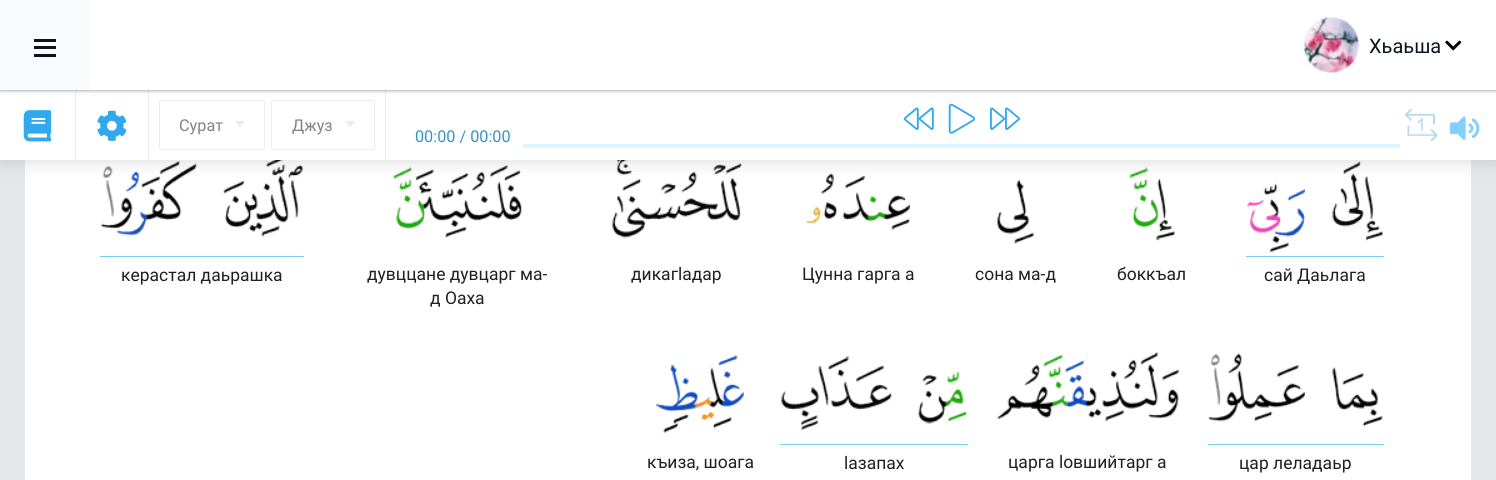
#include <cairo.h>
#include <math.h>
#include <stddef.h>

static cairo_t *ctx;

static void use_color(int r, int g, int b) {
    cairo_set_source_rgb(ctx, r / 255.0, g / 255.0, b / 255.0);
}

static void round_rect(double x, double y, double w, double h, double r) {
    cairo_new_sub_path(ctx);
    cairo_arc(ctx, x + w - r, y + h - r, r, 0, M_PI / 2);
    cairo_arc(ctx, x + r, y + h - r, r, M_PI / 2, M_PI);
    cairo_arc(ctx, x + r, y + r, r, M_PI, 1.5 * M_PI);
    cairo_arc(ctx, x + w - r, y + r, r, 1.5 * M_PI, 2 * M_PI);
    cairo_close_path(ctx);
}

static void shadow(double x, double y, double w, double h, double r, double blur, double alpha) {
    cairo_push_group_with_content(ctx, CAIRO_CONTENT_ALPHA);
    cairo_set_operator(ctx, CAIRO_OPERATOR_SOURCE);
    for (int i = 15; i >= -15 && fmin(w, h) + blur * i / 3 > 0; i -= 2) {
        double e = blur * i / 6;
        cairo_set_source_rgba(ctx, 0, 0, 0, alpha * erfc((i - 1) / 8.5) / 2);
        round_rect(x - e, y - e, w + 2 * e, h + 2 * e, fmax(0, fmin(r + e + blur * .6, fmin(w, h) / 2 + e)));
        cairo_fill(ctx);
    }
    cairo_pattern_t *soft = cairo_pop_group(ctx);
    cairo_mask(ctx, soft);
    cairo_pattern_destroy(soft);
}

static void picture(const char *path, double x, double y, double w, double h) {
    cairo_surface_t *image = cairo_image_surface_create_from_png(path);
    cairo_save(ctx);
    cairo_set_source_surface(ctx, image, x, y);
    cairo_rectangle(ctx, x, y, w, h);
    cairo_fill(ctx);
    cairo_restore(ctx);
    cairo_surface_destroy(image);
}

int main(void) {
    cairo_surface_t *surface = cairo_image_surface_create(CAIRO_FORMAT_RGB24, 1496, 480);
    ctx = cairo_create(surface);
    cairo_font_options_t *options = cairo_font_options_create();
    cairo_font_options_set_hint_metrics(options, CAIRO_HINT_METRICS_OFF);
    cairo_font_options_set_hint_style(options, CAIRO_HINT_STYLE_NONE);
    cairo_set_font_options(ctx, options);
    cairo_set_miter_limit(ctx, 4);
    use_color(229, 232, 235);
    cairo_paint(ctx);
    use_color(255, 255, 255);
    cairo_rectangle(ctx, 25, 160, 1446, 320);
    cairo_fill(ctx);
    picture("img10.png", 101, 161, 96, 75);
    picture("img11.png", 223, 160, 80, 77);
    picture("img12.png", 393, 165, 129, 73);
    picture("img13.png", 612, 160, 130, 78);
    picture("img14.png", 806, 173, 104, 58);
    picture("img15.png", 997, 179, 37, 65);
    picture("img16.png", 1130, 167, 45, 74);
    picture("img17.png", 1247, 183, 58, 70);
    picture("img18.png", 1332, 161, 51, 80);
    use_color(0, 0, 0);
    shadow(-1, 89, 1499, 72, 0, 9.5, 0.15);
    use_color(255, 255, 255);
    cairo_rectangle(ctx, 0, 90, 1496, 70);
    cairo_fill(ctx);
    use_color(236, 236, 236);
    cairo_rectangle(ctx, 148, 90, 1, 70);
    cairo_fill(ctx);
    cairo_rectangle(ctx, 75, 90, 1, 70);
    cairo_fill(ctx);
    cairo_rectangle(ctx, 385, 90, 1, 70);
    cairo_fill(ctx);
    use_color(0, 0, 0);
    shadow(0, 1, 1496, 90, 0, 1, 0.2);
    use_color(170, 170, 170);
    shadow(0, 1, 1496, 90, 0, 2.5, 0.5);
    use_color(255, 255, 255);
    cairo_rectangle(ctx, 90, 0, 1406, 90);
    cairo_fill(ctx);
    use_color(250, 251, 252);
    cairo_rectangle(ctx, 0, 0, 90, 90);
    cairo_fill(ctx);
    use_color(13, 19, 34);
    cairo_rectangle(ctx, 34, 39, 22, 3);
    cairo_fill(ctx);
    cairo_rectangle(ctx, 34, 46, 22, 3);
    cairo_fill(ctx);
    cairo_rectangle(ctx, 34, 54, 22, 3);
    cairo_fill(ctx);
    picture("img1.png", 1303, 17, 56, 56);
    cairo_select_font_face(ctx, "Roboto", CAIRO_FONT_SLANT_NORMAL, CAIRO_FONT_WEIGHT_NORMAL);
    cairo_set_font_size(ctx, 20);
    cairo_move_to(ctx, 1369, 53);
    cairo_show_text(ctx, "Хьаьша");
    picture("img2.png", 1445, 40, 17, 11);
    picture("img3.png", 23, 110, 29, 32);
    picture("img4.png", 97, 110, 30, 31);
    round_rect(159.5, 100.5, 105, 49, 2);
    use_color(236, 236, 236);
    cairo_set_line_width(ctx, 1);
    cairo_stroke(ctx);
    cairo_set_font_size(ctx, 16.25);
    use_color(130, 130, 130);
    cairo_move_to(ctx, 179, 131);
    cairo_show_text(ctx, "Сурат");
    use_color(236, 236, 236);
    cairo_new_path(ctx);
    cairo_move_to(ctx, 235, 121);
    cairo_line_to(ctx, 245, 121);
    cairo_line_to(ctx, 240, 127.5);
    cairo_close_path(ctx);
    cairo_fill(ctx);
    round_rect(271.5, 100.5, 103, 49, 2);
    cairo_stroke(ctx);
    use_color(130, 130, 130);
    cairo_move_to(ctx, 292, 131);
    cairo_show_text(ctx, "Джуз");
    use_color(236, 236, 236);
    cairo_new_path(ctx);
    cairo_move_to(ctx, 345, 121);
    cairo_line_to(ctx, 355, 121);
    cairo_line_to(ctx, 350, 127.5);
    cairo_close_path(ctx);
    cairo_fill(ctx);
    use_color(57, 147, 201);
    cairo_move_to(ctx, 415, 142);
    cairo_show_text(ctx, "00:00 / 00:00");
    picture("img5.png", 903, 107, 31, 23);
    picture("img6.png", 948, 103, 27, 31);
    picture("img7.png", 990, 107, 30, 23);
    use_color(224, 245, 255);
    cairo_rectangle(ctx, 523, 144, 877, 4);
    cairo_fill(ctx);
    picture("img8.png", 1405, 108, 33, 33);
    picture("img9.png", 1450, 116, 30, 24);
    use_color(120, 206, 243);
    cairo_rectangle(ctx, 100, 256, 204, 1);
    cairo_fill(ctx);
    cairo_set_font_size(ctx, 17.5);
    use_color(32, 32, 32);
    cairo_move_to(ctx, 121, 281);
    cairo_show_text(ctx, "керастал даьрашка");
    cairo_move_to(ctx, 367, 280);
    cairo_show_text(ctx, "дувццане дувцарг ма-");
    cairo_move_to(ctx, 430, 304);
    cairo_show_text(ctx, "д Оаха");
    cairo_move_to(ctx, 631, 280);
    cairo_show_text(ctx, "дикагlадар");
    cairo_move_to(ctx, 802, 280);
    cairo_show_text(ctx, "Цунна гарга а");
    cairo_move_to(ctx, 975, 280);
    cairo_show_text(ctx, "сона ма-д");
    cairo_move_to(ctx, 1117, 280);
    cairo_show_text(ctx, "боккъал");
    use_color(120, 206, 243);
    cairo_rectangle(ctx, 1246, 256, 138, 1);
    cairo_fill(ctx);
    use_color(32, 32, 32);
    cairo_move_to(ctx, 1264, 281);
    cairo_show_text(ctx, "сай Даьлага");
    picture("img19.png", 656, 355, 88, 78);
    cairo_move_to(ctx, 647, 468);
    cairo_show_text(ctx, "къиза, шоага");
    picture("img20.png", 781, 356, 111, 75);
    picture("img21.png", 918, 371, 49, 53);
    use_color(120, 206, 243);
    cairo_rectangle(ctx, 780, 444, 188, 1);
    cairo_fill(ctx);
    use_color(32, 32, 32);
    cairo_move_to(ctx, 844, 469);
    cairo_show_text(ctx, "lазапах");
    picture("img22.png", 997, 352, 182, 70);
    cairo_move_to(ctx, 1008, 468);
    cairo_show_text(ctx, "царга lовшийтарг а");
    picture("img23.png", 1208, 353, 97, 69);
    picture("img24.png", 1332, 367, 51, 60);
    use_color(120, 206, 243);
    cairo_rectangle(ctx, 1208, 444, 176, 1);
    cairo_fill(ctx);
    use_color(32, 32, 32);
    cairo_move_to(ctx, 1239, 469);
    cairo_show_text(ctx, "цар леладаьр");
    cairo_surface_write_to_png(surface, "result.png");
    cairo_font_options_destroy(options);
    cairo_destroy(ctx);
    cairo_surface_destroy(surface);
    return 0;
}
